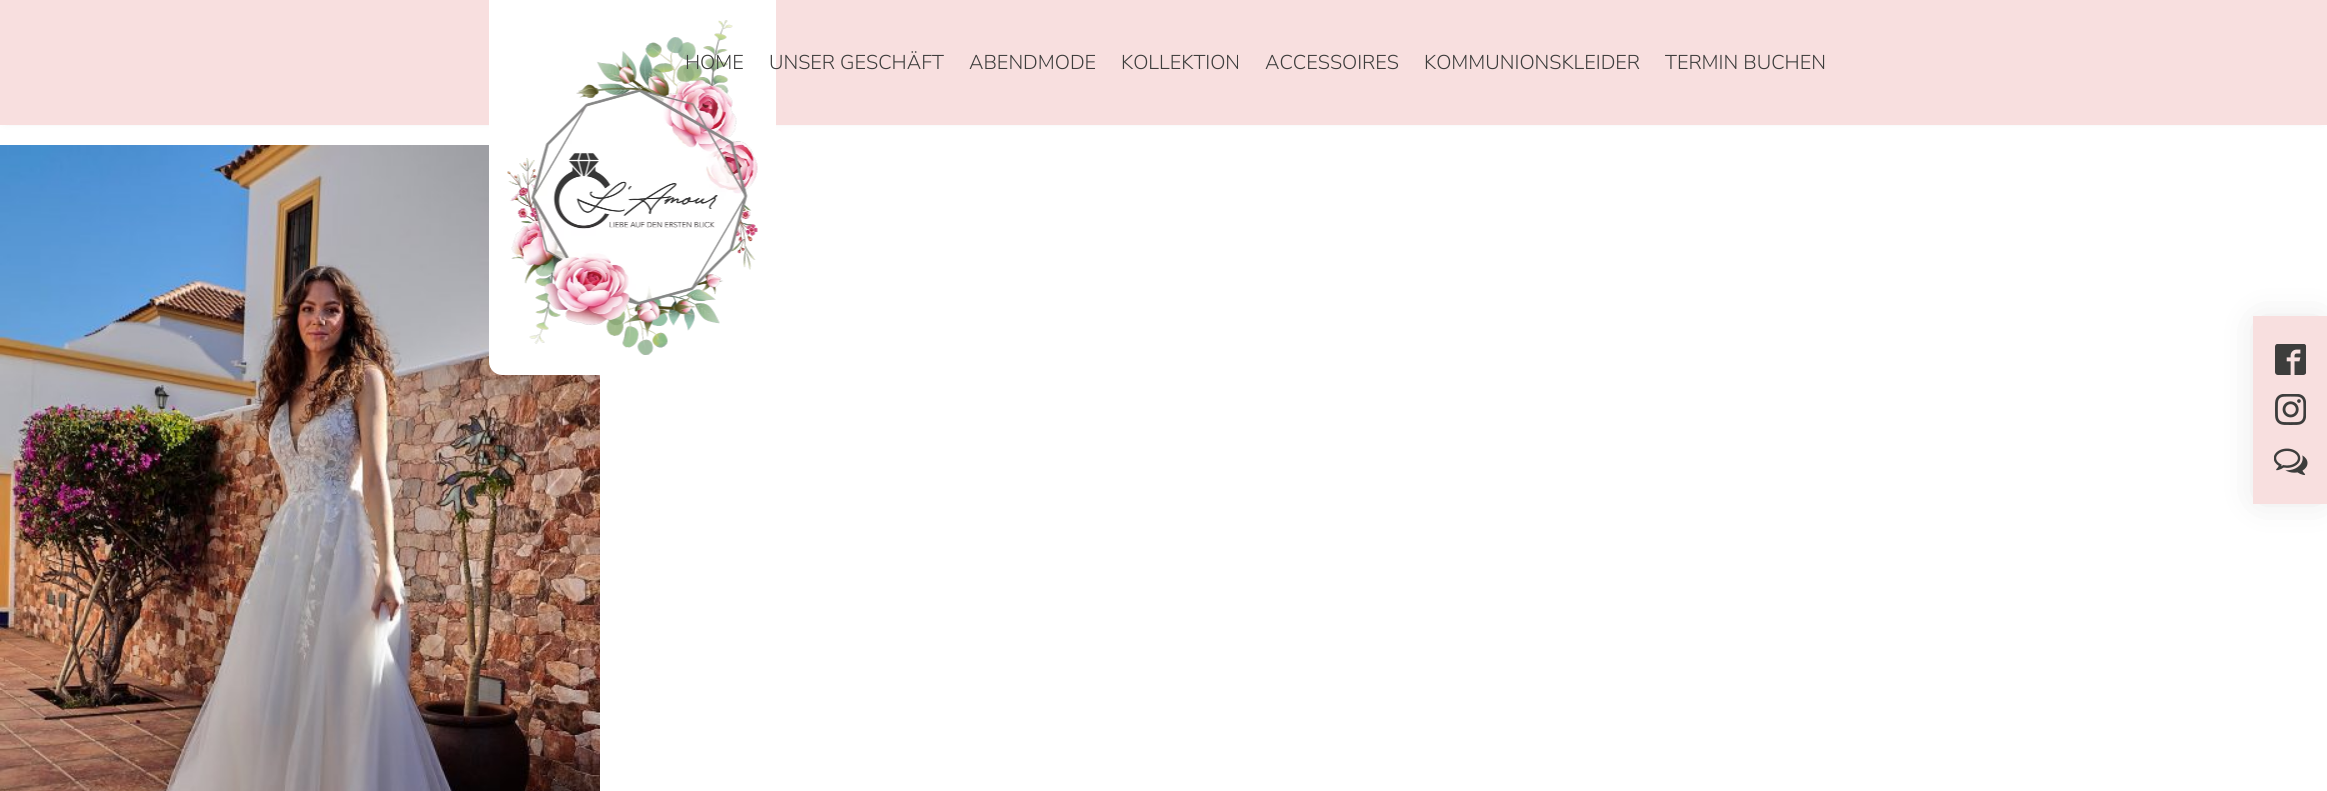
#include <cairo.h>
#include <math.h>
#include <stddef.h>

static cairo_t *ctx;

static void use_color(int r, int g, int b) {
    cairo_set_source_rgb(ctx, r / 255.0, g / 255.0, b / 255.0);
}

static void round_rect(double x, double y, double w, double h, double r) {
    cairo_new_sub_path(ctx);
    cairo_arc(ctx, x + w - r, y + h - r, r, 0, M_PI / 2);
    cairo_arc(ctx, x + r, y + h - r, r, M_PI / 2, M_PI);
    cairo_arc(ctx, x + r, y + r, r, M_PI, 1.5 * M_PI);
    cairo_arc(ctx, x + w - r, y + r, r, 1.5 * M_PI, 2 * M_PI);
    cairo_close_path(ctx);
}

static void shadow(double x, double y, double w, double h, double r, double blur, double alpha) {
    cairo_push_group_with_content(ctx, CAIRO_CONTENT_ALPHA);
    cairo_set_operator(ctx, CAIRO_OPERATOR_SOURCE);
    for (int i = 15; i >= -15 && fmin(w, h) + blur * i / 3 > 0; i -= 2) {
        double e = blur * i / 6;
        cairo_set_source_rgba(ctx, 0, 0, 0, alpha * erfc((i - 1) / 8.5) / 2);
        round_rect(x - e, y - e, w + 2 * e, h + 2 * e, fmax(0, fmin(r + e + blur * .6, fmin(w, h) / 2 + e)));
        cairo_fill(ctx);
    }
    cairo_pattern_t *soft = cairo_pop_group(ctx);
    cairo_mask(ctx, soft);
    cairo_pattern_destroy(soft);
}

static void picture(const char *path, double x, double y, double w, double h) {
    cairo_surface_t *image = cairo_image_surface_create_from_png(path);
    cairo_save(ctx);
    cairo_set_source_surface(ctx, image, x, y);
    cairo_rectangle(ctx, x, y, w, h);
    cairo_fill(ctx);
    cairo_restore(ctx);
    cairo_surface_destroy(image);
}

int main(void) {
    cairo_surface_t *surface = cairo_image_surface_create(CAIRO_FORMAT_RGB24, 2327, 791);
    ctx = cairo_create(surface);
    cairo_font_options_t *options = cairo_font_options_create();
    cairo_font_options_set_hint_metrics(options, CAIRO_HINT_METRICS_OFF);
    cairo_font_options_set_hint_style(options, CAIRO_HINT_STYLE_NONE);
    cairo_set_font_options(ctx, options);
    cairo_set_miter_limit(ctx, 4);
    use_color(255, 255, 255);
    cairo_paint(ctx);
    use_color(61, 61, 60);
    shadow(6, 6, 2315, 113, 0, 6, 0.15);
    use_color(248, 223, 223);
    cairo_rectangle(ctx, 0, 0, 2327, 125);
    cairo_fill(ctx);
    picture("img2.png", 0, 145, 600, 646);
    use_color(255, 255, 255);
    cairo_new_path(ctx);
    cairo_move_to(ctx, 489, 0);
    cairo_line_to(ctx, 776, 0);
    cairo_line_to(ctx, 776, 362);
    cairo_curve_to(ctx, 776, 369, 770, 375, 763, 375);
    cairo_line_to(ctx, 502, 375);
    cairo_curve_to(ctx, 495, 375, 489, 369, 489, 362);
    cairo_close_path(ctx);
    cairo_fill(ctx);
    picture("img1.png", 507, 20, 251, 335);
    cairo_select_font_face(ctx, "Nunito Sans Light", CAIRO_FONT_SLANT_NORMAL, CAIRO_FONT_WEIGHT_NORMAL);
    cairo_set_font_size(ctx, 20);
    use_color(61, 61, 60);
    cairo_move_to(ctx, 685, 69);
    cairo_show_text(ctx, "HOME");
    cairo_move_to(ctx, 769, 69);
    cairo_show_text(ctx, "UNSER GESCHÄFT");
    cairo_move_to(ctx, 969, 69);
    cairo_show_text(ctx, "ABENDMODE");
    cairo_move_to(ctx, 1121, 69);
    cairo_show_text(ctx, "KOLLEKTION");
    cairo_move_to(ctx, 1265, 69);
    cairo_show_text(ctx, "ACCESSOIRES");
    cairo_move_to(ctx, 1424, 69);
    cairo_show_text(ctx, "KOMMUNIONSKLEIDER");
    cairo_move_to(ctx, 1665, 69);
    cairo_show_text(ctx, "TERMIN BUCHEN");
    use_color(61, 61, 60);
    shadow(2259, 323, 62, 175, 0, 19, 0.15);
    use_color(248, 223, 223);
    cairo_rectangle(ctx, 2253, 316, 74, 188);
    cairo_fill(ctx);
    picture("img3.png", 2275, 344, 31, 31);
    picture("img4.png", 2275, 394, 31, 31);
    picture("img5.png", 2274, 448, 34, 28);
    cairo_surface_write_to_png(surface, "result.png");
    cairo_font_options_destroy(options);
    cairo_destroy(ctx);
    cairo_surface_destroy(surface);
    return 0;
}
